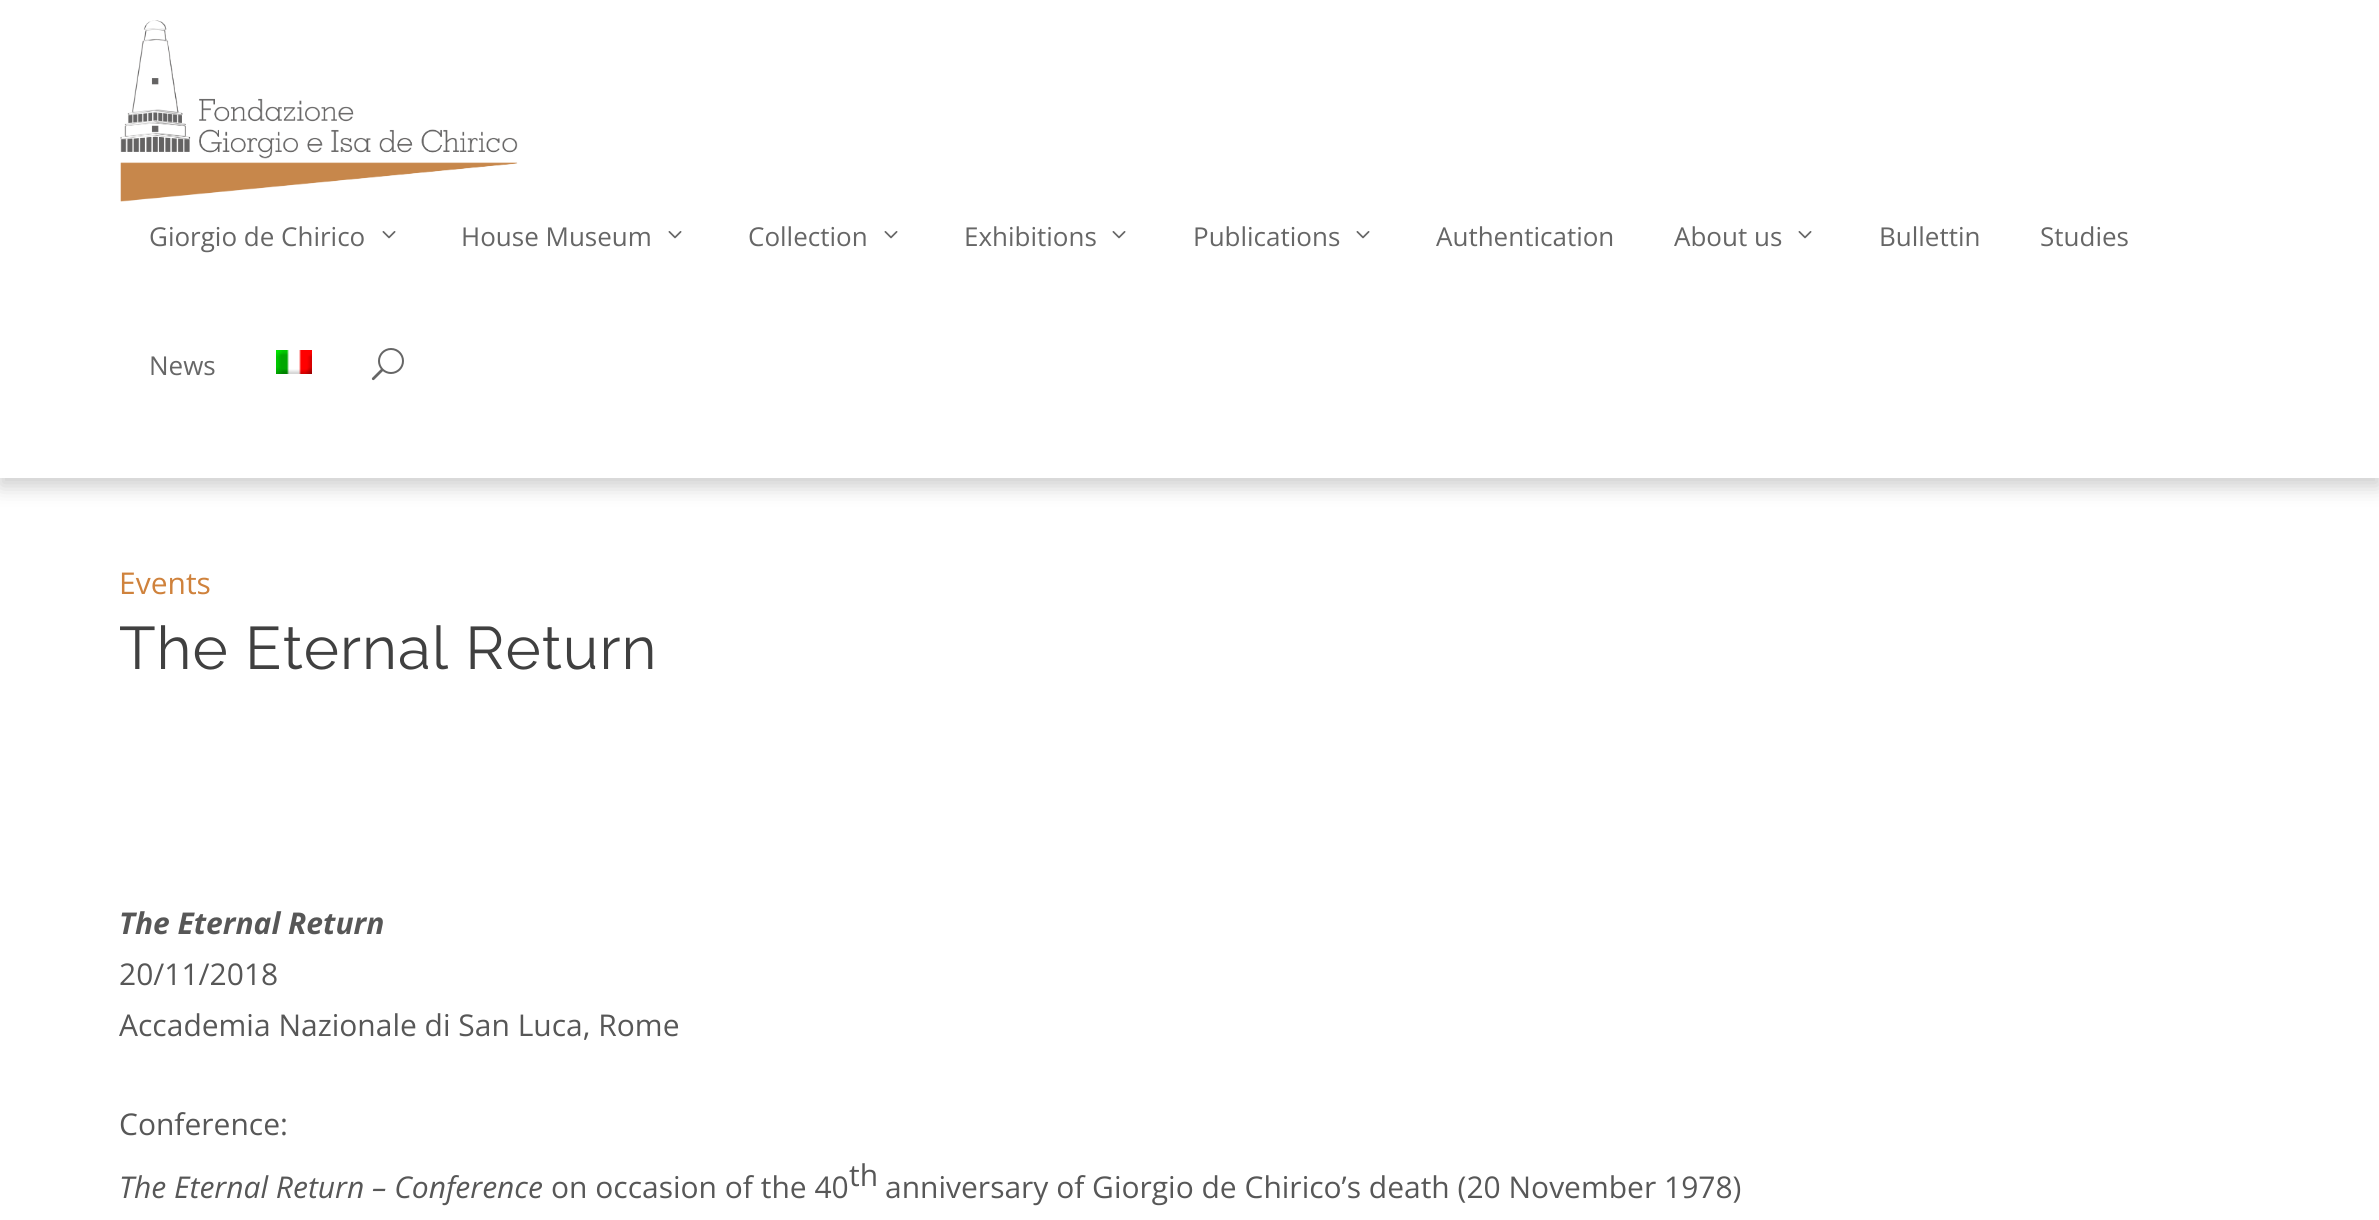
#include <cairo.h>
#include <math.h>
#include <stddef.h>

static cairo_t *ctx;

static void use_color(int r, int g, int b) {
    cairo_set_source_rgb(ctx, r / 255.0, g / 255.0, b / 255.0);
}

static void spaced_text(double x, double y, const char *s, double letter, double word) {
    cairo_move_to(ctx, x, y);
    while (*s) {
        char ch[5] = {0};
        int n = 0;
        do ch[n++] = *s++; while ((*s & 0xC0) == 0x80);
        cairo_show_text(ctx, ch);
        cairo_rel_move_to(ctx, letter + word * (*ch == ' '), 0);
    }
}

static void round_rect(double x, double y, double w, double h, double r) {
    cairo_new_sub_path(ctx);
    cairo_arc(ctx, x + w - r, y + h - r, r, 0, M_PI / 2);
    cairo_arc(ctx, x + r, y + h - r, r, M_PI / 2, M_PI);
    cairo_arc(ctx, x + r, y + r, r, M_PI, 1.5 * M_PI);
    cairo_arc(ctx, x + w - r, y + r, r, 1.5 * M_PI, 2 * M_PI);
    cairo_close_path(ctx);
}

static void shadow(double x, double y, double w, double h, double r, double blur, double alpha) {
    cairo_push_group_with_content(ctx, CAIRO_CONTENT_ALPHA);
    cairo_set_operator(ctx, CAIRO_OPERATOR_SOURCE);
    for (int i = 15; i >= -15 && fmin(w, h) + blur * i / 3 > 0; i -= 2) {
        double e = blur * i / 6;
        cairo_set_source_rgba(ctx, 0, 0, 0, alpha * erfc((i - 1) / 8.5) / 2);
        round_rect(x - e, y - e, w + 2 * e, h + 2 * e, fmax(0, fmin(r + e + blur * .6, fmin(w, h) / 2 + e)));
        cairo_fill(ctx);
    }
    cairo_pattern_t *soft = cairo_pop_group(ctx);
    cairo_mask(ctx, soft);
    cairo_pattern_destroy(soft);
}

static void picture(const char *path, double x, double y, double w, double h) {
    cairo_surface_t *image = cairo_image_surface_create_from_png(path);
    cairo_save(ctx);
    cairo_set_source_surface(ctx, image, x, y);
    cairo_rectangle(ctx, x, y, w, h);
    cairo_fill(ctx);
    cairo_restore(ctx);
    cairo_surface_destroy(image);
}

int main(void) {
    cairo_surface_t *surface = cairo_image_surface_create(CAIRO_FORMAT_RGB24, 2379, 1220);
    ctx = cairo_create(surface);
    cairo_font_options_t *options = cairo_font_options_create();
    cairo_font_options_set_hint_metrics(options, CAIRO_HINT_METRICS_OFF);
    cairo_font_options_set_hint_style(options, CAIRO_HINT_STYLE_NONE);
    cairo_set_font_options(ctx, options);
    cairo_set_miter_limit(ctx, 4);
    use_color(255, 255, 255);
    cairo_paint(ctx);
    cairo_save(ctx);
    cairo_rectangle(ctx, 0, 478, 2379, 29);
    cairo_clip(ctx);
    use_color(204, 204, 204);
    shadow(0, 8, 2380, 478, 0, 10, 1);
    cairo_restore(ctx);
    picture("img1.png", 120, 20, 398, 182);
    cairo_select_font_face(ctx, "Open Sans", CAIRO_FONT_SLANT_NORMAL, CAIRO_FONT_WEIGHT_NORMAL);
    cairo_set_font_size(ctx, 26);
    use_color(102, 102, 102);
    cairo_move_to(ctx, 149, 246);
    cairo_show_text(ctx, "Giorgio de Chirico");
    picture("img2.png", 382, 231, 14, 8);
    cairo_move_to(ctx, 461, 246);
    cairo_show_text(ctx, "House Museum");
    picture("img2.png", 668, 231, 14, 8);
    cairo_move_to(ctx, 748, 246);
    cairo_show_text(ctx, "Collection");
    picture("img2.png", 884, 231, 14, 8);
    cairo_move_to(ctx, 964, 246);
    cairo_show_text(ctx, "Exhibitions");
    picture("img2.png", 1112, 231, 14, 8);
    cairo_move_to(ctx, 1193, 246);
    cairo_show_text(ctx, "Publications");
    picture("img2.png", 1356, 231, 14, 8);
    cairo_move_to(ctx, 1436, 246);
    cairo_show_text(ctx, "Authentication");
    cairo_move_to(ctx, 1674, 246);
    cairo_show_text(ctx, "About us");
    picture("img2.png", 1798, 231, 14, 8);
    cairo_move_to(ctx, 1879, 246);
    cairo_show_text(ctx, "Bullettin");
    cairo_move_to(ctx, 2040, 246);
    cairo_show_text(ctx, "Studies");
    cairo_move_to(ctx, 149, 375);
    cairo_show_text(ctx, "News");
    picture("img3.png", 276, 350, 36, 24);
    picture("img4.png", 371, 348, 33, 33);
    cairo_set_font_size(ctx, 30);
    use_color(207, 130, 60);
    cairo_move_to(ctx, 119, 594);
    cairo_show_text(ctx, "Events");
    cairo_select_font_face(ctx, "Raleway Thin", CAIRO_FONT_SLANT_NORMAL, CAIRO_FONT_WEIGHT_NORMAL);
    cairo_set_font_size(ctx, 60);
    use_color(64, 64, 64);
    spaced_text(119, 669, "The Eternal Return", 1, 0);
    cairo_select_font_face(ctx, "Open Sans", CAIRO_FONT_SLANT_ITALIC, CAIRO_FONT_WEIGHT_BOLD);
    cairo_set_font_size(ctx, 30);
    use_color(87, 87, 87);
    cairo_move_to(ctx, 119, 934);
    cairo_show_text(ctx, "The Eternal Return");
    cairo_select_font_face(ctx, "Open Sans", CAIRO_FONT_SLANT_NORMAL, CAIRO_FONT_WEIGHT_NORMAL);
    cairo_move_to(ctx, 119, 985);
    cairo_show_text(ctx, "20/11/2018");
    cairo_move_to(ctx, 119, 1036);
    cairo_show_text(ctx, "Accademia Nazionale di San Luca, Rome");
    cairo_move_to(ctx, 119, 1135);
    cairo_show_text(ctx, "Conference:");
    cairo_select_font_face(ctx, "Open Sans", CAIRO_FONT_SLANT_ITALIC, CAIRO_FONT_WEIGHT_NORMAL);
    cairo_move_to(ctx, 119, 1198);
    cairo_show_text(ctx, "The Eternal Return – Conference");
    cairo_select_font_face(ctx, "Open Sans", CAIRO_FONT_SLANT_NORMAL, CAIRO_FONT_WEIGHT_NORMAL);
    cairo_move_to(ctx, 551, 1198);
    cairo_show_text(ctx, "on occasion of the 40");
    cairo_move_to(ctx, 849, 1186);
    cairo_show_text(ctx, "th");
    cairo_move_to(ctx, 885, 1198);
    cairo_show_text(ctx, "anniversary of Giorgio de Chirico’s death (20 November 1978)");
    cairo_surface_write_to_png(surface, "result.png");
    cairo_font_options_destroy(options);
    cairo_destroy(ctx);
    cairo_surface_destroy(surface);
    return 0;
}
